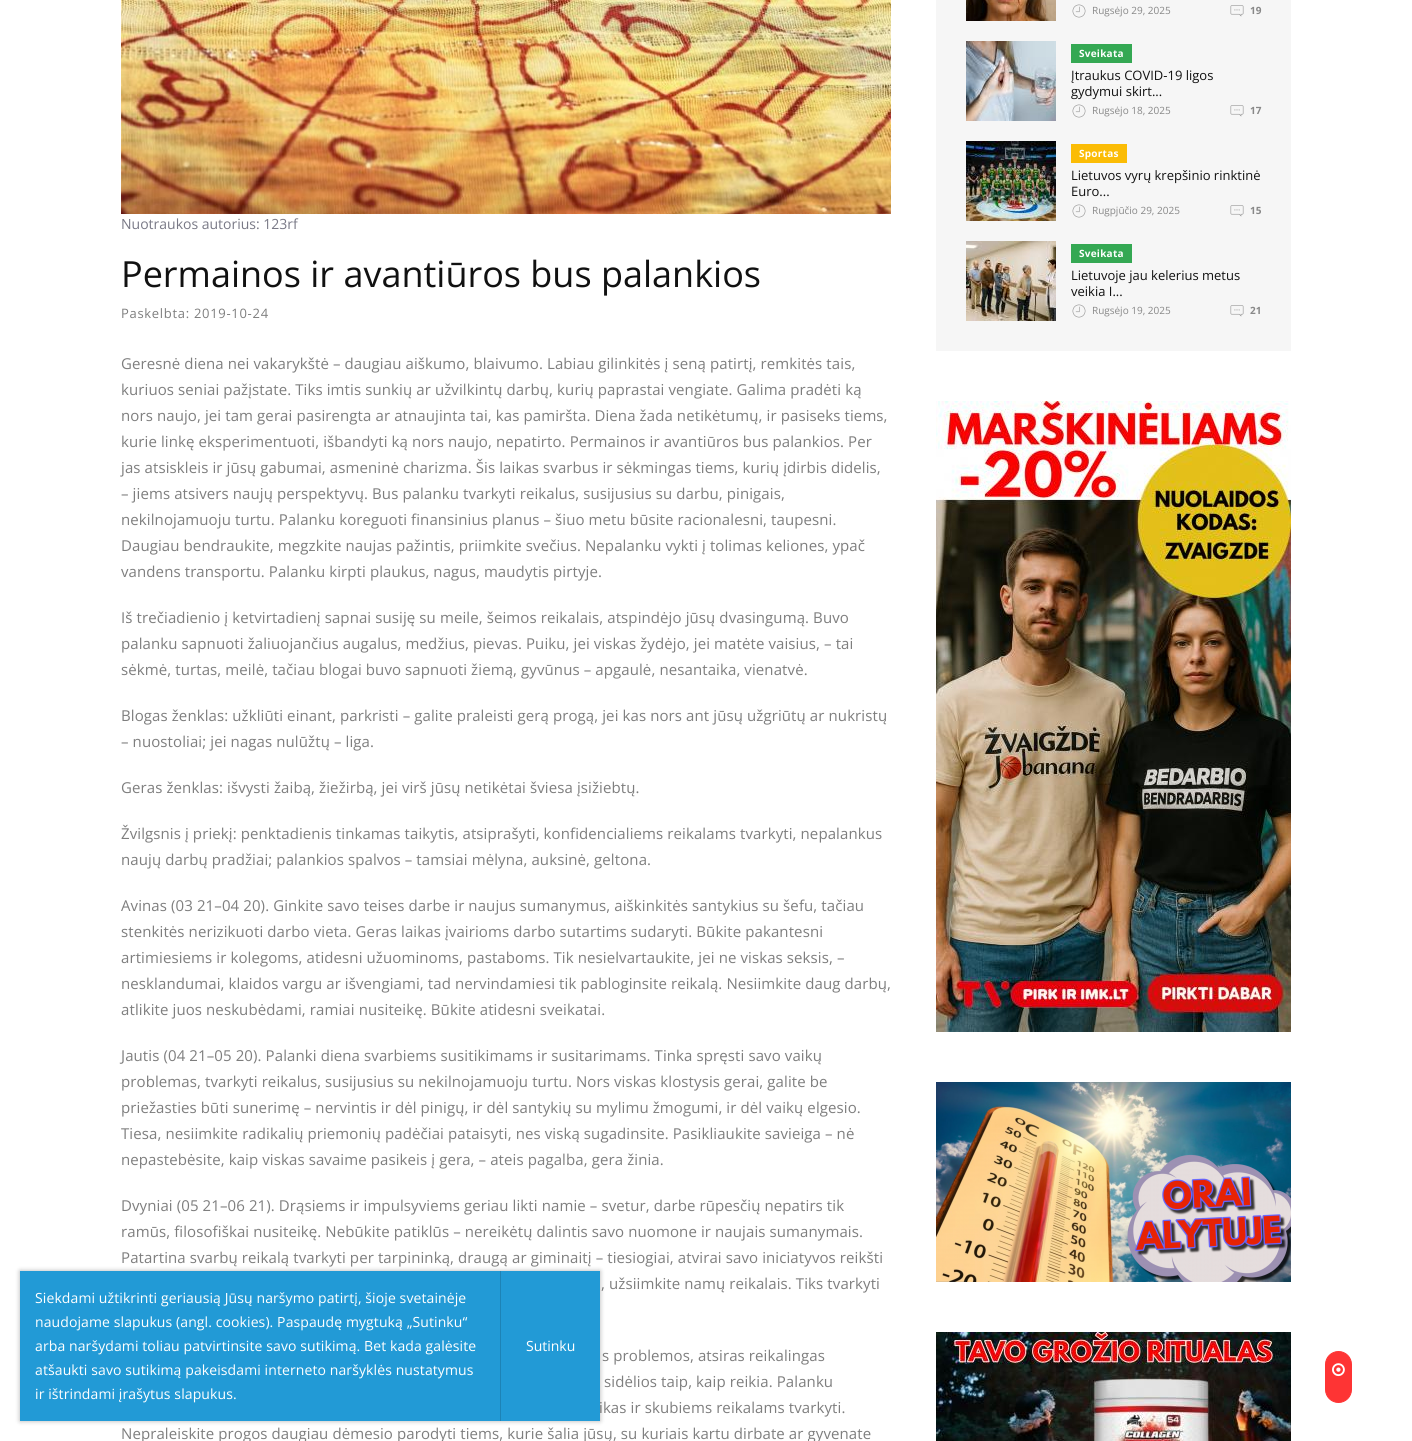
#include <cairo.h>
#include <math.h>
#include <stddef.h>

static cairo_t *ctx;

static void use_color(int r, int g, int b) {
    cairo_set_source_rgb(ctx, r / 255.0, g / 255.0, b / 255.0);
}

static void spaced_text(double x, double y, const char *s, double letter, double word) {
    cairo_move_to(ctx, x, y);
    while (*s) {
        char ch[5] = {0};
        int n = 0;
        do ch[n++] = *s++; while ((*s & 0xC0) == 0x80);
        cairo_show_text(ctx, ch);
        cairo_rel_move_to(ctx, letter + word * (*ch == ' '), 0);
    }
}

static void round_rect(double x, double y, double w, double h, double r) {
    cairo_new_sub_path(ctx);
    cairo_arc(ctx, x + w - r, y + h - r, r, 0, M_PI / 2);
    cairo_arc(ctx, x + r, y + h - r, r, M_PI / 2, M_PI);
    cairo_arc(ctx, x + r, y + r, r, M_PI, 1.5 * M_PI);
    cairo_arc(ctx, x + w - r, y + r, r, 1.5 * M_PI, 2 * M_PI);
    cairo_close_path(ctx);
}

static void shadow(double x, double y, double w, double h, double r, double blur, double alpha) {
    cairo_push_group_with_content(ctx, CAIRO_CONTENT_ALPHA);
    cairo_set_operator(ctx, CAIRO_OPERATOR_SOURCE);
    for (int i = 15; i >= -15 && fmin(w, h) + blur * i / 3 > 0; i -= 2) {
        double e = blur * i / 6;
        cairo_set_source_rgba(ctx, 0, 0, 0, alpha * erfc((i - 1) / 8.5) / 2);
        round_rect(x - e, y - e, w + 2 * e, h + 2 * e, fmax(0, fmin(r + e + blur * .6, fmin(w, h) / 2 + e)));
        cairo_fill(ctx);
    }
    cairo_pattern_t *soft = cairo_pop_group(ctx);
    cairo_mask(ctx, soft);
    cairo_pattern_destroy(soft);
}

static void picture(const char *path, double x, double y, double w, double h) {
    cairo_surface_t *image = cairo_image_surface_create_from_png(path);
    cairo_save(ctx);
    cairo_set_source_surface(ctx, image, x, y);
    cairo_rectangle(ctx, x, y, w, h);
    cairo_fill(ctx);
    cairo_restore(ctx);
    cairo_surface_destroy(image);
}

int main(void) {
    cairo_surface_t *surface = cairo_image_surface_create(CAIRO_FORMAT_RGB24, 1412, 1441);
    ctx = cairo_create(surface);
    cairo_font_options_t *options = cairo_font_options_create();
    cairo_font_options_set_hint_metrics(options, CAIRO_HINT_METRICS_OFF);
    cairo_font_options_set_hint_style(options, CAIRO_HINT_STYLE_NONE);
    cairo_set_font_options(ctx, options);
    cairo_set_miter_limit(ctx, 4);
    use_color(255, 255, 255);
    cairo_paint(ctx);
    use_color(246, 246, 246);
    cairo_rectangle(ctx, 936, 0, 355, 351);
    cairo_fill(ctx);
    picture("img1.png", 966, 0, 90, 21);
    picture("img2.png", 1072, 4, 14, 14);
    cairo_select_font_face(ctx, "Open Sans", CAIRO_FONT_SLANT_NORMAL, CAIRO_FONT_WEIGHT_NORMAL);
    cairo_set_font_size(ctx, 10);
    use_color(136, 136, 136);
    cairo_move_to(ctx, 1092, 14);
    cairo_show_text(ctx, "Rugsėjo 29, 2025");
    picture("img3.png", 1230, 5, 14, 12);
    cairo_select_font_face(ctx, "Open Sans", CAIRO_FONT_SLANT_NORMAL, CAIRO_FONT_WEIGHT_BOLD);
    cairo_move_to(ctx, 1250, 14);
    cairo_show_text(ctx, "19");
    picture("img4.png", 966, 41, 90, 80);
    use_color(52, 168, 83);
    cairo_rectangle(ctx, 1071, 44, 61, 19);
    cairo_fill(ctx);
    use_color(255, 255, 255);
    spaced_text(1079, 57, "Sveikata", 0.25, 0);
    cairo_select_font_face(ctx, "Open Sans", CAIRO_FONT_SLANT_NORMAL, CAIRO_FONT_WEIGHT_NORMAL);
    cairo_set_font_size(ctx, 13);
    use_color(17, 17, 17);
    cairo_move_to(ctx, 1071, 80);
    cairo_show_text(ctx, "Įtraukus COVID-19 ligos");
    cairo_move_to(ctx, 1071, 96);
    cairo_show_text(ctx, "gydymui skirt...");
    picture("img2.png", 1072, 104, 14, 14);
    cairo_set_font_size(ctx, 10);
    use_color(136, 136, 136);
    cairo_move_to(ctx, 1092, 114);
    cairo_show_text(ctx, "Rugsėjo 18, 2025");
    picture("img3.png", 1230, 105, 14, 12);
    cairo_select_font_face(ctx, "Open Sans", CAIRO_FONT_SLANT_NORMAL, CAIRO_FONT_WEIGHT_BOLD);
    cairo_move_to(ctx, 1250, 114);
    cairo_show_text(ctx, "17");
    picture("img5.png", 966, 141, 90, 80);
    use_color(251, 188, 5);
    cairo_rectangle(ctx, 1071, 144, 56, 19);
    cairo_fill(ctx);
    use_color(255, 255, 255);
    spaced_text(1079, 157, "Sportas", 0.25, 0);
    cairo_select_font_face(ctx, "Open Sans", CAIRO_FONT_SLANT_NORMAL, CAIRO_FONT_WEIGHT_NORMAL);
    cairo_set_font_size(ctx, 13);
    use_color(17, 17, 17);
    cairo_move_to(ctx, 1071, 180);
    cairo_show_text(ctx, "Lietuvos vyrų krepšinio rinktinė");
    cairo_move_to(ctx, 1071, 196);
    cairo_show_text(ctx, "Euro...");
    picture("img2.png", 1072, 204, 14, 14);
    cairo_set_font_size(ctx, 10);
    use_color(136, 136, 136);
    cairo_move_to(ctx, 1092, 214);
    cairo_show_text(ctx, "Rugpjūčio 29, 2025");
    picture("img3.png", 1230, 205, 14, 12);
    cairo_select_font_face(ctx, "Open Sans", CAIRO_FONT_SLANT_NORMAL, CAIRO_FONT_WEIGHT_BOLD);
    cairo_move_to(ctx, 1250, 214);
    cairo_show_text(ctx, "15");
    picture("img6.png", 966, 241, 90, 80);
    use_color(52, 168, 83);
    cairo_rectangle(ctx, 1071, 244, 61, 19);
    cairo_fill(ctx);
    use_color(255, 255, 255);
    spaced_text(1079, 257, "Sveikata", 0.25, 0);
    cairo_select_font_face(ctx, "Open Sans", CAIRO_FONT_SLANT_NORMAL, CAIRO_FONT_WEIGHT_NORMAL);
    cairo_set_font_size(ctx, 13);
    use_color(17, 17, 17);
    cairo_move_to(ctx, 1071, 280);
    cairo_show_text(ctx, "Lietuvoje jau kelerius metus");
    cairo_move_to(ctx, 1071, 296);
    cairo_show_text(ctx, "veikia I...");
    picture("img2.png", 1072, 304, 14, 14);
    cairo_set_font_size(ctx, 10);
    use_color(136, 136, 136);
    cairo_move_to(ctx, 1092, 314);
    cairo_show_text(ctx, "Rugsėjo 19, 2025");
    picture("img3.png", 1230, 305, 14, 12);
    cairo_select_font_face(ctx, "Open Sans", CAIRO_FONT_SLANT_NORMAL, CAIRO_FONT_WEIGHT_BOLD);
    cairo_move_to(ctx, 1250, 314);
    cairo_show_text(ctx, "21");
    picture("img7.png", 936, 401, 355, 631);
    picture("img8.png", 936, 1082, 355, 200);
    picture("img9.png", 936, 1332, 355, 109);
    picture("img10.png", 121, 0, 770, 214);
    cairo_select_font_face(ctx, "Open Sans", CAIRO_FONT_SLANT_NORMAL, CAIRO_FONT_WEIGHT_NORMAL);
    cairo_set_font_size(ctx, 14);
    use_color(121, 121, 134);
    cairo_move_to(ctx, 121, 229);
    cairo_show_text(ctx, "Nuotraukos autorius: 123rf");
    cairo_set_font_size(ctx, 36);
    use_color(17, 17, 17);
    cairo_move_to(ctx, 121, 287);
    cairo_show_text(ctx, "Permainos ir avantiūros bus palankios");
    cairo_set_font_size(ctx, 13);
    use_color(126, 126, 126);
    spaced_text(121, 318, "Paskelbta: 2019-10-24", 0.7, 0);
    cairo_set_font_size(ctx, 15);
    spaced_text(121, 369, "Geresnė diena nei vakarykštė – daugiau aiškumo, blaivumo. Labiau gilinkitės į seną patirtį, remkitės tais,", 0.1, 0);
    spaced_text(121, 395, "kuriuos seniai pažįstate. Tiks imtis sunkių ar užvilkintų darbų, kurių paprastai vengiate. Galima pradėti ką", 0.1, 0);
    spaced_text(121, 421, "nors naujo, jei tam gerai pasirengta ar atnaujinta tai, kas pamiršta. Diena žada netikėtumų, ir pasiseks tiems,", 0.1, 0);
    spaced_text(121, 447, "kurie linkę eksperimentuoti, išbandyti ką nors naujo, nepatirto. Permainos ir avantiūros bus palankios. Per", 0.1, 0);
    spaced_text(121, 473, "jas atsiskleis ir jūsų gabumai, asmeninė charizma. Šis laikas svarbus ir sėkmingas tiems, kurių įdirbis didelis,", 0.1, 0);
    spaced_text(121, 499, "– jiems atsivers naujų perspektyvų. Bus palanku tvarkyti reikalus, susijusius su darbu, pinigais,", 0.1, 0);
    spaced_text(121, 525, "nekilnojamuoju turtu. Palanku koreguoti finansinius planus – šiuo metu būsite racionalesni, taupesni.", 0.1, 0);
    spaced_text(121, 551, "Daugiau bendraukite, megzkite naujas pažintis, priimkite svečius. Nepalanku vykti į tolimas keliones, ypač", 0.1, 0);
    spaced_text(121, 577, "vandens transportu. Palanku kirpti plaukus, nagus, maudytis pirtyje.", 0.1, 0);
    spaced_text(121, 623, "Iš trečiadienio į ketvirtadienį sapnai susiję su meile, šeimos reikalais, atspindėjo jūsų dvasingumą. Buvo", 0.1, 0);
    spaced_text(121, 649, "palanku sapnuoti žaliuojančius augalus, medžius, pievas. Puiku, jei viskas žydėjo, jei matėte vaisius, – tai", 0.1, 0);
    spaced_text(121, 675, "sėkmė, turtas, meilė, tačiau blogai buvo sapnuoti žiemą, gyvūnus – apgaulė, nesantaika, vienatvė.", 0.1, 0);
    spaced_text(121, 721, "Blogas ženklas: užkliūti einant, parkristi – galite praleisti gerą progą, jei kas nors ant jūsų užgriūtų ar nukristų", 0.1, 0);
    spaced_text(121, 747, "– nuostoliai; jei nagas nulūžtų – liga.", 0.1, 0);
    spaced_text(121, 793, "Geras ženklas: išvysti žaibą, žiežirbą, jei virš jūsų netikėtai šviesa įsižiebtų.", 0.1, 0);
    spaced_text(121, 839, "Žvilgsnis į priekį: penktadienis tinkamas taikytis, atsiprašyti, konfidencialiems reikalams tvarkyti, nepalankus", 0.1, 0);
    spaced_text(121, 865, "naujų darbų pradžiai; palankios spalvos – tamsiai mėlyna, auksinė, geltona.", 0.1, 0);
    spaced_text(121, 911, "Avinas (03 21–04 20). Ginkite savo teises darbe ir naujus sumanymus, aiškinkitės santykius su šefu, tačiau", 0.1, 0);
    spaced_text(121, 937, "stenkitės nerizikuoti darbo vieta. Geras laikas įvairioms darbo sutartims sudaryti. Būkite pakantesni", 0.1, 0);
    spaced_text(121, 963, "artimiesiems ir kolegoms, atidesni užuominoms, pastaboms. Tik nesielvartaukite, jei ne viskas seksis, –", 0.1, 0);
    spaced_text(121, 989, "nesklandumai, klaidos vargu ar išvengiami, tad nervindamiesi tik pabloginsite reikalą. Nesiimkite daug darbų,", 0.1, 0);
    spaced_text(121, 1015, "atlikite juos neskubėdami, ramiai nusiteikę. Būkite atidesni sveikatai.", 0.1, 0);
    spaced_text(121, 1061, "Jautis (04 21–05 20). Palanki diena svarbiems susitikimams ir susitarimams. Tinka spręsti savo vaikų", 0.1, 0);
    spaced_text(121, 1087, "problemas, tvarkyti reikalus, susijusius su nekilnojamuoju turtu. Nors viskas klostysis gerai, galite be", 0.1, 0);
    spaced_text(121, 1113, "priežasties būti sunerimę – nervintis ir dėl pinigų, ir dėl santykių su mylimu žmogumi, ir dėl vaikų elgesio.", 0.1, 0);
    spaced_text(121, 1139, "Tiesa, nesiimkite radikalių priemonių padėčiai pataisyti, nes viską sugadinsite. Pasikliaukite savieiga – nė", 0.1, 0);
    spaced_text(121, 1165, "nepastebėsite, kaip viskas savaime pasikeis į gera, – ateis pagalba, gera žinia.", 0.1, 0);
    spaced_text(121, 1211, "Dvyniai (05 21–06 21). Drąsiems ir impulsyviems geriau likti namie – svetur, darbe rūpesčių nepatirs tik", 0.1, 0);
    spaced_text(121, 1237, "ramūs, filosofiškai nusiteikę. Nebūkite patiklūs – nereikėtų dalintis savo nuomone ir naujais sumanymais.", 0.1, 0);
    spaced_text(121, 1263, "Patartina svarbų reikalą tvarkyti per tarpininką, draugą ar giminaitį – tiesiogiai, atvirai savo iniciatyvos reikšti", 0.1, 0);
    spaced_text(601, 1289, ", užsiimkite namų reikalais. Tiks tvarkyti", 0.1, 0);
    spaced_text(602, 1361, "s problemos, atsiras reikalingas", 0.1, 0);
    spaced_text(604, 1387, "sidėlios taip, kaip reikia. Palanku", 0.1, 0);
    spaced_text(599, 1413, "ikas ir skubiems reikalams tvarkyti.", 0.1, 0);
    spaced_text(121, 1439, "Nepraleiskite progos daugiau dėmesio parodyti tiems, kurie šalia jūsų, su kuriais kartu dirbate ar gyvenate", 0.1, 0);
    use_color(0, 0, 0);
    shadow(20, 1271, 580, 150, 0, 2.5, 0.3);
    use_color(34, 154, 214);
    cairo_rectangle(ctx, 20, 1271, 580, 150);
    cairo_fill(ctx);
    cairo_set_font_size(ctx, 14);
    use_color(255, 255, 255);
    spaced_text(35, 1303, "Siekdami užtikrinti geriausią Jūsų naršymo patirtį, šioje svetainėje", 0.1, 0);
    spaced_text(35, 1327, "naudojame slapukus (angl. cookies). Paspaudę mygtuką „Sutinku“", 0.1, 0);
    spaced_text(35, 1351, "arba naršydami toliau patvirtinsite savo sutikimą. Bet kada galėsite", 0.1, 0);
    spaced_text(35, 1375, "atšaukti savo sutikimą pakeisdami interneto naršyklės nustatymus", 0.1, 0);
    spaced_text(35, 1399, "ir ištrindami įrašytus slapukus.", 0.1, 0);
    use_color(29, 131, 182);
    cairo_rectangle(ctx, 500, 1271, 1, 150);
    cairo_fill(ctx);
    use_color(255, 255, 255);
    cairo_move_to(ctx, 526, 1351);
    cairo_show_text(ctx, "Sutinku");
    use_color(254, 52, 52);
    round_rect(1325.5, 1351.5, 26, 51, 13);
    cairo_fill_preserve(ctx);
    cairo_set_line_width(ctx, 1);
    cairo_stroke(ctx);
    picture("img11.png", 1332, 1363, 13, 14);
    cairo_surface_write_to_png(surface, "result.png");
    cairo_font_options_destroy(options);
    cairo_destroy(ctx);
    cairo_surface_destroy(surface);
    return 0;
}
